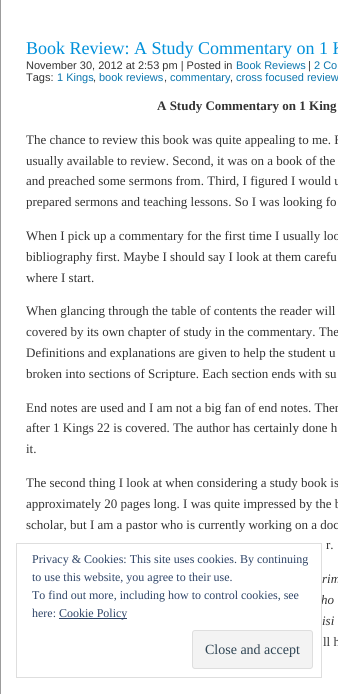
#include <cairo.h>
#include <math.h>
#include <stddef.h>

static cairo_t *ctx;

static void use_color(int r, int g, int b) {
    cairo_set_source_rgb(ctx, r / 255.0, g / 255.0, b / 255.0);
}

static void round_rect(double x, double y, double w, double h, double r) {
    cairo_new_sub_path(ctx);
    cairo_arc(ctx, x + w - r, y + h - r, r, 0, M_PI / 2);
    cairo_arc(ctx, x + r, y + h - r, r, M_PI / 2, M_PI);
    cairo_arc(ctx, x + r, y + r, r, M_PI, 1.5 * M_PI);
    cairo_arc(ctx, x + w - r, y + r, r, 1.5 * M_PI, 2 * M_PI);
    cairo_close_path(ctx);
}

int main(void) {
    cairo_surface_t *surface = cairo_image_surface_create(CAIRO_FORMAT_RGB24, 338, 694);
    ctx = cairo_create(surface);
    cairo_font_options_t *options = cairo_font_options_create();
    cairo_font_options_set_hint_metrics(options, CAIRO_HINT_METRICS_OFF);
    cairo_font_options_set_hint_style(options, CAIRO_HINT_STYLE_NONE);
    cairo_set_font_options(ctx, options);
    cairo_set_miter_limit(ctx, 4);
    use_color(255, 255, 255);
    cairo_paint(ctx);
    cairo_rectangle(ctx, 0.5, -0.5, 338, 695);
    use_color(156, 156, 156);
    cairo_set_line_width(ctx, 1);
    cairo_stroke(ctx);
    cairo_select_font_face(ctx, "Liberation Serif", CAIRO_FONT_SLANT_NORMAL, CAIRO_FONT_WEIGHT_NORMAL);
    cairo_set_font_size(ctx, 18);
    use_color(0, 144, 218);
    cairo_move_to(ctx, 26, 54);
    cairo_show_text(ctx, "Book Review: A Study Commentary on 1 K");
    cairo_select_font_face(ctx, "Liberation Sans", CAIRO_FONT_SLANT_NORMAL, CAIRO_FONT_WEIGHT_NORMAL);
    cairo_set_font_size(ctx, 11);
    use_color(51, 51, 51);
    cairo_move_to(ctx, 26, 69);
    cairo_show_text(ctx, "November 30, 2012 at 2:53 pm | Posted in");
    use_color(11, 118, 174);
    cairo_move_to(ctx, 236, 69);
    cairo_show_text(ctx, "Book Reviews");
    use_color(51, 51, 51);
    cairo_move_to(ctx, 308, 69);
    cairo_show_text(ctx, "|");
    use_color(11, 118, 174);
    cairo_move_to(ctx, 314, 69);
    cairo_show_text(ctx, "2 Co");
    use_color(51, 51, 51);
    cairo_move_to(ctx, 26, 81);
    cairo_show_text(ctx, "Tags:");
    use_color(11, 118, 174);
    cairo_move_to(ctx, 57, 81);
    cairo_show_text(ctx, "1 Kings");
    use_color(51, 51, 51);
    cairo_move_to(ctx, 93, 81);
    cairo_show_text(ctx, ",");
    use_color(11, 118, 174);
    cairo_move_to(ctx, 99, 81);
    cairo_show_text(ctx, "book reviews");
    use_color(51, 51, 51);
    cairo_move_to(ctx, 164, 81);
    cairo_show_text(ctx, ",");
    use_color(11, 118, 174);
    cairo_move_to(ctx, 170, 81);
    cairo_show_text(ctx, "commentary");
    use_color(51, 51, 51);
    cairo_move_to(ctx, 230, 81);
    cairo_show_text(ctx, ",");
    use_color(11, 118, 174);
    cairo_move_to(ctx, 236, 81);
    cairo_show_text(ctx, "cross focused review");
    cairo_select_font_face(ctx, "Liberation Serif", CAIRO_FONT_SLANT_NORMAL, CAIRO_FONT_WEIGHT_BOLD);
    cairo_set_font_size(ctx, 13);
    use_color(51, 51, 51);
    cairo_move_to(ctx, 157, 110);
    cairo_show_text(ctx, "A Study Commentary on 1 King");
    cairo_select_font_face(ctx, "Liberation Serif", CAIRO_FONT_SLANT_NORMAL, CAIRO_FONT_WEIGHT_NORMAL);
    cairo_move_to(ctx, 26, 144);
    cairo_show_text(ctx, "The chance to review this book was quite appealing to me. F");
    cairo_move_to(ctx, 26, 165);
    cairo_show_text(ctx, "usually available to review. Second, it was on a book of the");
    cairo_move_to(ctx, 26, 185);
    cairo_show_text(ctx, "and preached some sermons from. Third, I figured I would u");
    cairo_move_to(ctx, 26, 206);
    cairo_show_text(ctx, "prepared sermons and teaching lessons. So I was looking fo");
    cairo_move_to(ctx, 26, 240);
    cairo_show_text(ctx, "When I pick up a commentary for the first time I usually loo");
    cairo_move_to(ctx, 26, 261);
    cairo_show_text(ctx, "bibliography first. Maybe I should say I look at them carefu");
    cairo_move_to(ctx, 26, 282);
    cairo_show_text(ctx, "where I start.");
    cairo_move_to(ctx, 26, 315);
    cairo_show_text(ctx, "When glancing through the table of contents the reader will");
    cairo_move_to(ctx, 26, 336);
    cairo_show_text(ctx, "covered by its own chapter of study in the commentary. The");
    cairo_move_to(ctx, 26, 357);
    cairo_show_text(ctx, "Definitions and explanations are given to help the student u");
    cairo_move_to(ctx, 26, 378);
    cairo_show_text(ctx, "broken into sections of Scripture. Each section ends with su");
    cairo_move_to(ctx, 26, 412);
    cairo_show_text(ctx, "End notes are used and I am not a big fan of end notes. Ther");
    cairo_move_to(ctx, 26, 432);
    cairo_show_text(ctx, "after 1 Kings 22 is covered. The author has certainly done h");
    cairo_move_to(ctx, 26, 453);
    cairo_show_text(ctx, "it.");
    cairo_move_to(ctx, 26, 487);
    cairo_show_text(ctx, "The second thing I look at when considering a study book is");
    cairo_move_to(ctx, 26, 508);
    cairo_show_text(ctx, "approximately 20 pages long. I was quite impressed by the b");
    cairo_move_to(ctx, 26, 529);
    cairo_show_text(ctx, "scholar, but I am a pastor who is currently working on a doc");
    cairo_move_to(ctx, 326, 549);
    cairo_show_text(ctx, "r.");
    cairo_select_font_face(ctx, "Liberation Serif", CAIRO_FONT_SLANT_ITALIC, CAIRO_FONT_WEIGHT_NORMAL);
    cairo_move_to(ctx, 322, 583);
    cairo_show_text(ctx, "rim");
    cairo_move_to(ctx, 321, 604);
    cairo_show_text(ctx, "ho");
    cairo_move_to(ctx, 322, 625);
    cairo_show_text(ctx, "isi");
    cairo_select_font_face(ctx, "Liberation Serif", CAIRO_FONT_SLANT_NORMAL, CAIRO_FONT_WEIGHT_NORMAL);
    cairo_move_to(ctx, 323, 646);
    cairo_show_text(ctx, "ll h");
    cairo_rectangle(ctx, 16.5, 543.5, 305, 134);
    use_color(222, 222, 222);
    cairo_stroke(ctx);
    cairo_set_font_size(ctx, 12);
    use_color(46, 68, 103);
    cairo_move_to(ctx, 32, 563);
    cairo_show_text(ctx, "Privacy & Cookies: This site uses cookies. By continuing");
    cairo_move_to(ctx, 32, 581);
    cairo_show_text(ctx, "to use this website, you agree to their use.");
    cairo_move_to(ctx, 32, 599);
    cairo_show_text(ctx, "To find out more, including how to control cookies, see");
    cairo_move_to(ctx, 32, 617);
    cairo_show_text(ctx, "here:");
    cairo_rectangle(ctx, 59, 618, 68, 1);
    cairo_fill(ctx);
    cairo_move_to(ctx, 59, 617);
    cairo_show_text(ctx, "Cookie Policy");
    use_color(243, 243, 243);
    round_rect(192.5, 630.5, 120, 38, 2.5);
    cairo_fill_preserve(ctx);
    use_color(222, 222, 222);
    cairo_stroke(ctx);
    cairo_set_font_size(ctx, 14);
    use_color(46, 68, 83);
    cairo_move_to(ctx, 205, 654);
    cairo_show_text(ctx, "Close and accept");
    cairo_surface_write_to_png(surface, "result.png");
    cairo_font_options_destroy(options);
    cairo_destroy(ctx);
    cairo_surface_destroy(surface);
    return 0;
}
